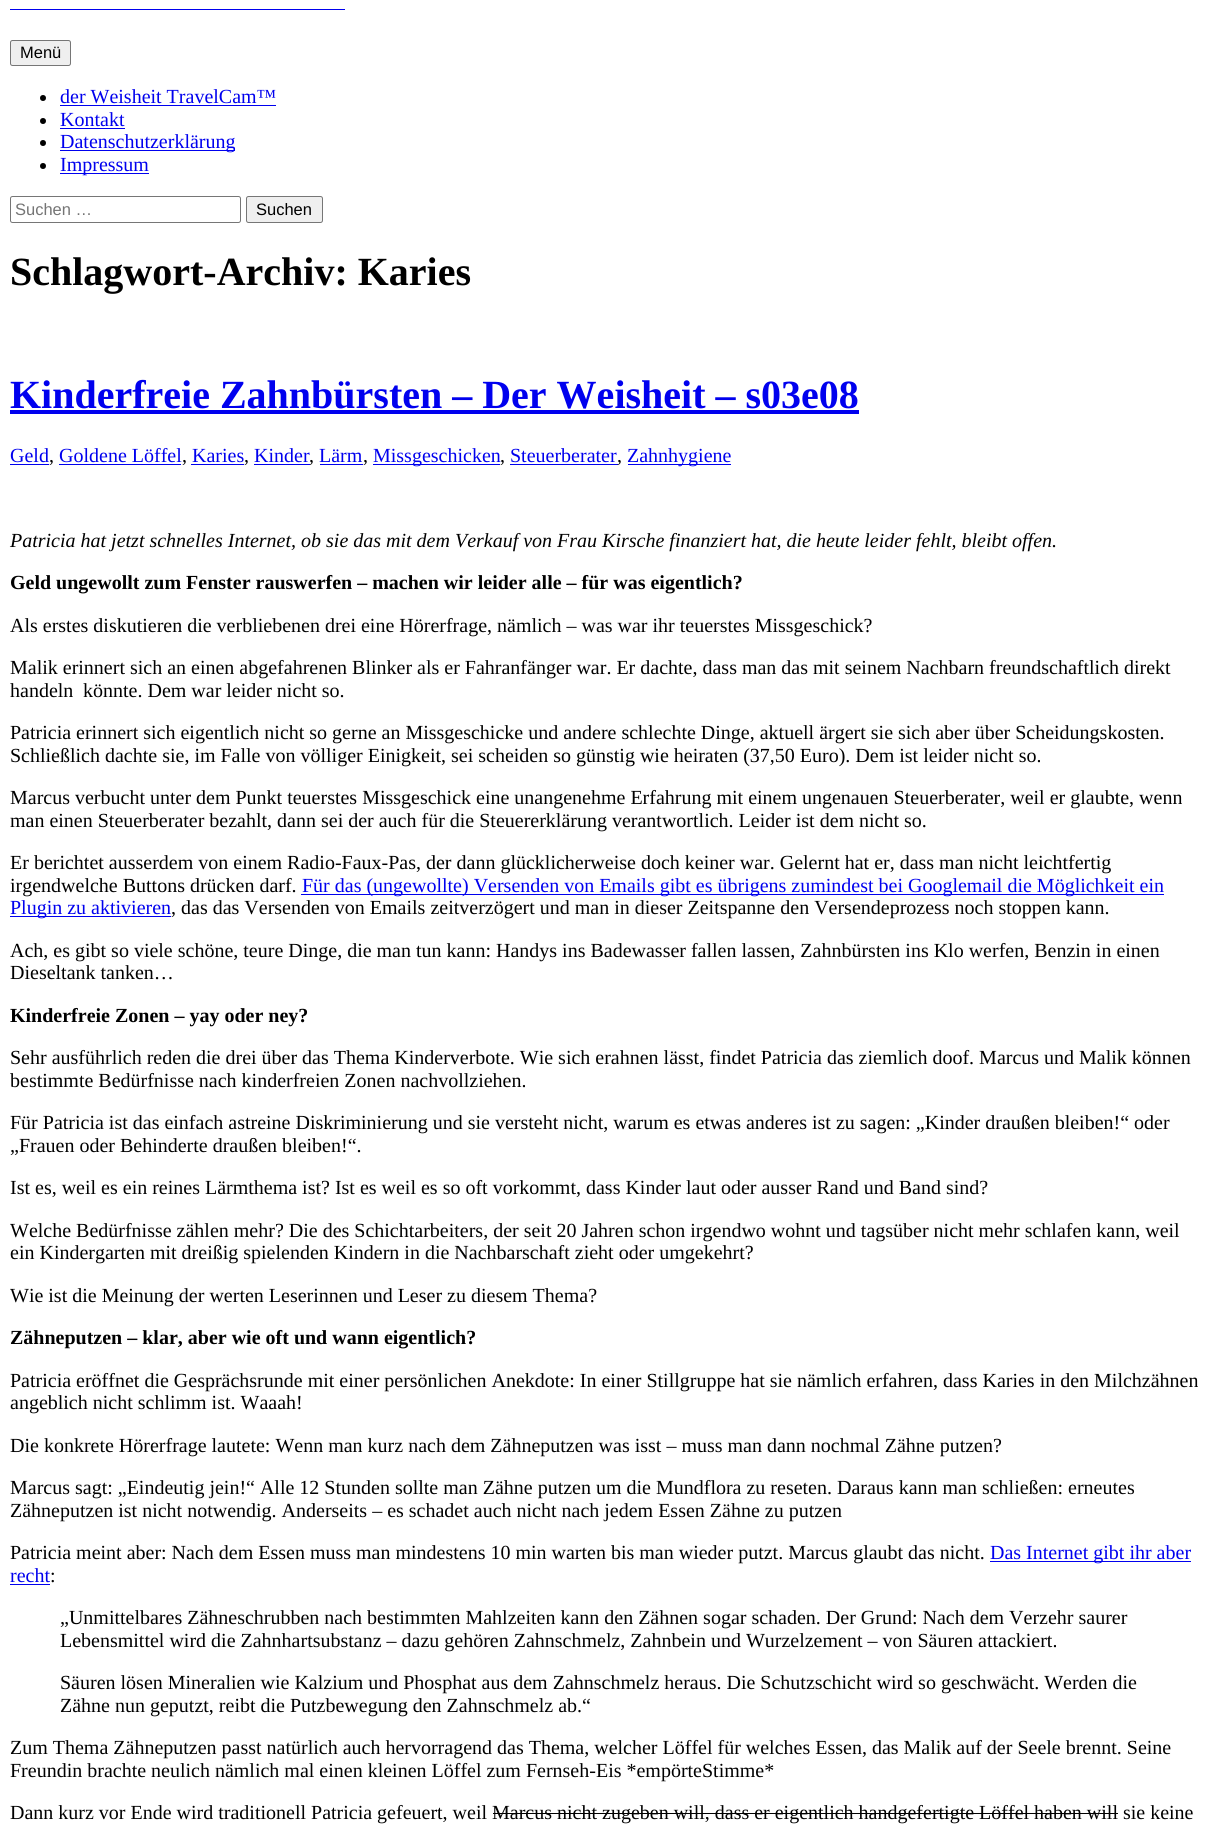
#include <cairo.h>
#include <math.h>
#include <stddef.h>

static cairo_t *ctx;

static void use_color(int r, int g, int b) {
    cairo_set_source_rgb(ctx, r / 255.0, g / 255.0, b / 255.0);
}

static void round_rect(double x, double y, double w, double h, double r) {
    cairo_new_sub_path(ctx);
    cairo_arc(ctx, x + w - r, y + h - r, r, 0, M_PI / 2);
    cairo_arc(ctx, x + r, y + h - r, r, M_PI / 2, M_PI);
    cairo_arc(ctx, x + r, y + r, r, M_PI, 1.5 * M_PI);
    cairo_arc(ctx, x + w - r, y + r, r, 1.5 * M_PI, 2 * M_PI);
    cairo_close_path(ctx);
}

int main(void) {
    cairo_surface_t *surface = cairo_image_surface_create(CAIRO_FORMAT_RGB24, 1210, 1834);
    ctx = cairo_create(surface);
    cairo_font_options_t *options = cairo_font_options_create();
    cairo_font_options_set_hint_metrics(options, CAIRO_HINT_METRICS_OFF);
    cairo_font_options_set_hint_style(options, CAIRO_HINT_STYLE_NONE);
    cairo_set_font_options(ctx, options);
    cairo_set_miter_limit(ctx, 4);
    use_color(255, 255, 255);
    cairo_paint(ctx);
    use_color(0, 0, 238);
    cairo_rectangle(ctx, 10, 9, 335, 1);
    cairo_fill(ctx);
    use_color(239, 239, 239);
    round_rect(10.5, 40.5, 60, 25, 2);
    cairo_fill_preserve(ctx);
    use_color(118, 118, 118);
    cairo_set_line_width(ctx, 1);
    cairo_stroke(ctx);
    cairo_select_font_face(ctx, "Liberation Sans", CAIRO_FONT_SLANT_NORMAL, CAIRO_FONT_WEIGHT_NORMAL);
    cairo_set_font_size(ctx, 16.5);
    use_color(0, 0, 0);
    cairo_move_to(ctx, 20, 58);
    cairo_show_text(ctx, "Menü");
    cairo_new_path(ctx);
    cairo_arc(ctx, 43, 98, 3, 0, 2 * M_PI);
    cairo_fill(ctx);
    cairo_select_font_face(ctx, "Liberation Serif", CAIRO_FONT_SLANT_NORMAL, CAIRO_FONT_WEIGHT_NORMAL);
    cairo_set_font_size(ctx, 20);
    use_color(0, 0, 238);
    cairo_move_to(ctx, 60, 103);
    cairo_show_text(ctx, "der Weisheit TravelCam™");
    cairo_rectangle(ctx, 60, 105, 216, 1);
    cairo_fill(ctx);
    use_color(0, 0, 0);
    cairo_arc(ctx, 43, 121, 3, 0, 2 * M_PI);
    cairo_fill(ctx);
    use_color(0, 0, 238);
    cairo_move_to(ctx, 60, 126);
    cairo_show_text(ctx, "Kontakt");
    cairo_rectangle(ctx, 60, 128, 65, 1);
    cairo_fill(ctx);
    use_color(0, 0, 0);
    cairo_arc(ctx, 43, 143, 3, 0, 2 * M_PI);
    cairo_fill(ctx);
    use_color(0, 0, 238);
    cairo_rectangle(ctx, 60, 150, 175, 1);
    cairo_fill(ctx);
    cairo_move_to(ctx, 60, 148);
    cairo_show_text(ctx, "Datenschutzerklärung");
    use_color(0, 0, 0);
    cairo_new_path(ctx);
    cairo_arc(ctx, 43, 166, 3, 0, 2 * M_PI);
    cairo_fill(ctx);
    use_color(0, 0, 238);
    cairo_rectangle(ctx, 60, 173, 89, 1);
    cairo_fill(ctx);
    cairo_move_to(ctx, 60, 171);
    cairo_show_text(ctx, "Impressum");
    round_rect(10.5, 196.5, 230, 26, 2);
    use_color(118, 118, 118);
    cairo_stroke(ctx);
    cairo_select_font_face(ctx, "Liberation Sans", CAIRO_FONT_SLANT_NORMAL, CAIRO_FONT_WEIGHT_NORMAL);
    cairo_set_font_size(ctx, 16.5);
    use_color(117, 117, 117);
    cairo_move_to(ctx, 15, 215);
    cairo_show_text(ctx, "Suchen …");
    use_color(239, 239, 239);
    round_rect(246.5, 196.5, 76, 26, 2);
    cairo_fill_preserve(ctx);
    use_color(118, 118, 118);
    cairo_stroke(ctx);
    use_color(0, 0, 0);
    cairo_move_to(ctx, 256, 215);
    cairo_show_text(ctx, "Suchen");
    cairo_select_font_face(ctx, "Liberation Serif", CAIRO_FONT_SLANT_NORMAL, CAIRO_FONT_WEIGHT_BOLD);
    cairo_set_font_size(ctx, 40);
    cairo_move_to(ctx, 10, 285);
    cairo_show_text(ctx, "Schlagwort-Archiv: Karies");
    use_color(0, 0, 238);
    cairo_move_to(ctx, 10, 408);
    cairo_show_text(ctx, "Kinderfreie Zahnbürsten – Der Weisheit – s03e08");
    cairo_rectangle(ctx, 10, 410, 849, 4);
    cairo_fill(ctx);
    cairo_select_font_face(ctx, "Liberation Serif", CAIRO_FONT_SLANT_NORMAL, CAIRO_FONT_WEIGHT_NORMAL);
    cairo_set_font_size(ctx, 20);
    cairo_move_to(ctx, 10, 462);
    cairo_show_text(ctx, "Geld");
    use_color(0, 0, 0);
    cairo_move_to(ctx, 49, 462);
    cairo_show_text(ctx, ",");
    use_color(0, 0, 238);
    cairo_rectangle(ctx, 10, 464, 39, 1);
    cairo_fill(ctx);
    cairo_move_to(ctx, 59, 462);
    cairo_show_text(ctx, "Goldene Löffel");
    use_color(0, 0, 0);
    cairo_move_to(ctx, 182, 462);
    cairo_show_text(ctx, ",");
    use_color(0, 0, 238);
    cairo_rectangle(ctx, 59, 464, 122, 1);
    cairo_fill(ctx);
    cairo_move_to(ctx, 192, 462);
    cairo_show_text(ctx, "Karies");
    use_color(0, 0, 0);
    cairo_move_to(ctx, 244, 462);
    cairo_show_text(ctx, ",");
    use_color(0, 0, 238);
    cairo_rectangle(ctx, 191, 464, 53, 1);
    cairo_fill(ctx);
    cairo_move_to(ctx, 254, 462);
    cairo_show_text(ctx, "Kinder");
    use_color(0, 0, 0);
    cairo_move_to(ctx, 309, 462);
    cairo_show_text(ctx, ",");
    use_color(0, 0, 238);
    cairo_rectangle(ctx, 254, 464, 56, 1);
    cairo_fill(ctx);
    cairo_move_to(ctx, 319, 462);
    cairo_show_text(ctx, "Lärm");
    use_color(0, 0, 0);
    cairo_move_to(ctx, 363, 462);
    cairo_show_text(ctx, ",");
    use_color(0, 0, 238);
    cairo_rectangle(ctx, 320, 464, 43, 1);
    cairo_fill(ctx);
    cairo_rectangle(ctx, 373, 464, 127, 1);
    cairo_fill(ctx);
    cairo_move_to(ctx, 373, 462);
    cairo_show_text(ctx, "Missgeschicken");
    use_color(0, 0, 0);
    cairo_move_to(ctx, 500, 462);
    cairo_show_text(ctx, ",");
    use_color(0, 0, 238);
    cairo_move_to(ctx, 510, 462);
    cairo_show_text(ctx, "Steuerberater");
    cairo_rectangle(ctx, 510, 464, 108, 1);
    cairo_fill(ctx);
    use_color(0, 0, 0);
    cairo_move_to(ctx, 617, 462);
    cairo_show_text(ctx, ",");
    use_color(0, 0, 238);
    cairo_rectangle(ctx, 628, 464, 103, 1);
    cairo_fill(ctx);
    cairo_move_to(ctx, 627, 462);
    cairo_show_text(ctx, "Zahnhygiene");
    cairo_select_font_face(ctx, "Liberation Serif", CAIRO_FONT_SLANT_ITALIC, CAIRO_FONT_WEIGHT_NORMAL);
    use_color(0, 0, 0);
    cairo_move_to(ctx, 10, 547);
    cairo_show_text(ctx, "Patricia hat jetzt schnelles Internet, ob sie das mit dem Verkauf von Frau Kirsche finanziert hat, die heute leider fehlt, bleibt offen.");
    cairo_select_font_face(ctx, "Liberation Serif", CAIRO_FONT_SLANT_NORMAL, CAIRO_FONT_WEIGHT_BOLD);
    cairo_move_to(ctx, 10, 589);
    cairo_show_text(ctx, "Geld ungewollt zum Fenster rauswerfen – machen wir leider alle – für was eigentlich?");
    cairo_select_font_face(ctx, "Liberation Serif", CAIRO_FONT_SLANT_NORMAL, CAIRO_FONT_WEIGHT_NORMAL);
    cairo_move_to(ctx, 10, 632);
    cairo_show_text(ctx, "Als erstes diskutieren die verbliebenen drei eine Hörerfrage, nämlich – was war ihr teuerstes Missgeschick?");
    cairo_move_to(ctx, 10, 674);
    cairo_show_text(ctx, "Malik erinnert sich an einen abgefahrenen Blinker als er Fahranfänger war. Er dachte, dass man das mit seinem Nachbarn freundschaftlich direkt");
    cairo_move_to(ctx, 10, 697);
    cairo_show_text(ctx, "handeln");
    cairo_move_to(ctx, 83, 697);
    cairo_show_text(ctx, "könnte. Dem war leider nicht so.");
    cairo_move_to(ctx, 10, 739);
    cairo_show_text(ctx, "Patricia erinnert sich eigentlich nicht so gerne an Missgeschicke und andere schlechte Dinge, aktuell ärgert sie sich aber über Scheidungskosten.");
    cairo_move_to(ctx, 10, 762);
    cairo_show_text(ctx, "Schließlich dachte sie, im Falle von völliger Einigkeit, sei scheiden so günstig wie heiraten (37,50 Euro). Dem ist leider nicht so.");
    cairo_move_to(ctx, 10, 804);
    cairo_show_text(ctx, "Marcus verbucht unter dem Punkt teuerstes Missgeschick eine unangenehme Erfahrung mit einem ungenauen Steuerberater, weil er glaubte, wenn");
    cairo_move_to(ctx, 10, 827);
    cairo_show_text(ctx, "man einen Steuerberater bezahlt, dann sei der auch für die Steuererklärung verantwortlich. Leider ist dem nicht so.");
    cairo_move_to(ctx, 10, 869);
    cairo_show_text(ctx, "Er berichtet ausserdem von einem Radio-Faux-Pas, der dann glücklicherweise doch keiner war. Gelernt hat er, dass man nicht leichtfertig");
    cairo_move_to(ctx, 10, 892);
    cairo_show_text(ctx, "irgendwelche Buttons drücken darf.");
    use_color(0, 0, 238);
    cairo_rectangle(ctx, 301, 894, 863, 1);
    cairo_fill(ctx);
    cairo_move_to(ctx, 302, 892);
    cairo_show_text(ctx, "Für das (ungewollte) Versenden von Emails gibt es übrigens zumindest bei Googlemail die Möglichkeit ein");
    cairo_rectangle(ctx, 10, 916, 161, 1);
    cairo_fill(ctx);
    cairo_move_to(ctx, 10, 914);
    cairo_show_text(ctx, "Plugin zu aktivieren");
    use_color(0, 0, 0);
    cairo_move_to(ctx, 171, 914);
    cairo_show_text(ctx, ", das das Versenden von Emails zeitverzögert und man in dieser Zeitspanne den Versendeprozess noch stoppen kann.");
    cairo_move_to(ctx, 10, 957);
    cairo_show_text(ctx, "Ach, es gibt so viele schöne, teure Dinge, die man tun kann: Handys ins Badewasser fallen lassen, Zahnbürsten ins Klo werfen, Benzin in einen");
    cairo_move_to(ctx, 10, 979);
    cairo_show_text(ctx, "Dieseltank tanken…");
    cairo_select_font_face(ctx, "Liberation Serif", CAIRO_FONT_SLANT_NORMAL, CAIRO_FONT_WEIGHT_BOLD);
    cairo_move_to(ctx, 10, 1022);
    cairo_show_text(ctx, "Kinderfreie Zonen – yay oder ney?");
    cairo_select_font_face(ctx, "Liberation Serif", CAIRO_FONT_SLANT_NORMAL, CAIRO_FONT_WEIGHT_NORMAL);
    cairo_move_to(ctx, 10, 1064);
    cairo_show_text(ctx, "Sehr ausführlich reden die drei über das Thema Kinderverbote. Wie sich erahnen lässt, findet Patricia das ziemlich doof. Marcus und Malik können");
    cairo_move_to(ctx, 10, 1087);
    cairo_show_text(ctx, "bestimmte Bedürfnisse nach kinderfreien Zonen nachvollziehen.");
    cairo_move_to(ctx, 10, 1129);
    cairo_show_text(ctx, "Für Patricia ist das einfach astreine Diskriminierung und sie versteht nicht, warum es etwas anderes ist zu sagen: „Kinder draußen bleiben!“ oder");
    cairo_move_to(ctx, 10, 1152);
    cairo_show_text(ctx, "„Frauen oder Behinderte draußen bleiben!“.");
    cairo_move_to(ctx, 10, 1194);
    cairo_show_text(ctx, "Ist es, weil es ein reines Lärmthema ist? Ist es weil es so oft vorkommt, dass Kinder laut oder ausser Rand und Band sind?");
    cairo_move_to(ctx, 10, 1237);
    cairo_show_text(ctx, "Welche Bedürfnisse zählen mehr? Die des Schichtarbeiters, der seit 20 Jahren schon irgendwo wohnt und tagsüber nicht mehr schlafen kann, weil");
    cairo_move_to(ctx, 10, 1259);
    cairo_show_text(ctx, "ein Kindergarten mit dreißig spielenden Kindern in die Nachbarschaft zieht oder umgekehrt?");
    cairo_move_to(ctx, 10, 1302);
    cairo_show_text(ctx, "Wie ist die Meinung der werten Leserinnen und Leser zu diesem Thema?");
    cairo_select_font_face(ctx, "Liberation Serif", CAIRO_FONT_SLANT_NORMAL, CAIRO_FONT_WEIGHT_BOLD);
    cairo_move_to(ctx, 10, 1344);
    cairo_show_text(ctx, "Zähneputzen – klar, aber wie oft und wann eigentlich?");
    cairo_select_font_face(ctx, "Liberation Serif", CAIRO_FONT_SLANT_NORMAL, CAIRO_FONT_WEIGHT_NORMAL);
    cairo_move_to(ctx, 10, 1387);
    cairo_show_text(ctx, "Patricia eröffnet die Gesprächsrunde mit einer persönlichen Anekdote: In einer Stillgruppe hat sie nämlich erfahren, dass Karies in den Milchzähnen");
    cairo_move_to(ctx, 10, 1409);
    cairo_show_text(ctx, "angeblich nicht schlimm ist. Waaah!");
    cairo_move_to(ctx, 10, 1452);
    cairo_show_text(ctx, "Die konkrete Hörerfrage lautete: Wenn man kurz nach dem Zähneputzen was isst – muss man dann nochmal Zähne putzen?");
    cairo_move_to(ctx, 10, 1494);
    cairo_show_text(ctx, "Marcus sagt: „Eindeutig jein!“ Alle 12 Stunden sollte man Zähne putzen um die Mundflora zu reseten. Daraus kann man schließen: erneutes");
    cairo_move_to(ctx, 10, 1517);
    cairo_show_text(ctx, "Zähneputzen ist nicht notwendig. Anderseits – es schadet auch nicht nach jedem Essen Zähne zu putzen");
    cairo_move_to(ctx, 10, 1559);
    cairo_show_text(ctx, "Patricia meint aber: Nach dem Essen muss man mindestens 10 min warten bis man wieder putzt. Marcus glaubt das nicht.");
    use_color(0, 0, 238);
    cairo_rectangle(ctx, 990, 1561, 201, 1);
    cairo_fill(ctx);
    cairo_move_to(ctx, 990, 1559);
    cairo_show_text(ctx, "Das Internet gibt ihr aber");
    cairo_move_to(ctx, 10, 1582);
    cairo_show_text(ctx, "recht");
    cairo_rectangle(ctx, 10, 1584, 40, 1);
    cairo_fill(ctx);
    use_color(0, 0, 0);
    cairo_move_to(ctx, 50, 1582);
    cairo_show_text(ctx, ":");
    cairo_move_to(ctx, 60, 1624);
    cairo_show_text(ctx, "„Unmittelbares Zähneschrubben nach bestimmten Mahlzeiten kann den Zähnen sogar schaden. Der Grund: Nach dem Verzehr saurer");
    cairo_move_to(ctx, 60, 1647);
    cairo_show_text(ctx, "Lebensmittel wird die Zahnhartsubstanz – dazu gehören Zahnschmelz, Zahnbein und Wurzelzement – von Säuren attackiert.");
    cairo_move_to(ctx, 60, 1689);
    cairo_show_text(ctx, "Säuren lösen Mineralien wie Kalzium und Phosphat aus dem Zahnschmelz heraus. Die Schutzschicht wird so geschwächt. Werden die");
    cairo_move_to(ctx, 60, 1712);
    cairo_show_text(ctx, "Zähne nun geputzt, reibt die Putzbewegung den Zahnschmelz ab.“");
    cairo_move_to(ctx, 10, 1754);
    cairo_show_text(ctx, "Zum Thema Zähneputzen passt natürlich auch hervorragend das Thema, welcher Löffel für welches Essen, das Malik auf der Seele brennt. Seine");
    cairo_move_to(ctx, 10, 1777);
    cairo_show_text(ctx, "Freundin brachte neulich nämlich mal einen kleinen Löffel zum Fernseh-Eis *empörteStimme*");
    cairo_move_to(ctx, 10, 1819);
    cairo_show_text(ctx, "Dann kurz vor Ende wird traditionell Patricia gefeuert, weil Marcus nicht zugeben will, dass er eigentlich handgefertigte Löffel haben will sie keine");
    cairo_rectangle(ctx, 493, 1813, 625, 1);
    cairo_fill(ctx);
    cairo_surface_write_to_png(surface, "result.png");
    cairo_font_options_destroy(options);
    cairo_destroy(ctx);
    cairo_surface_destroy(surface);
    return 0;
}
